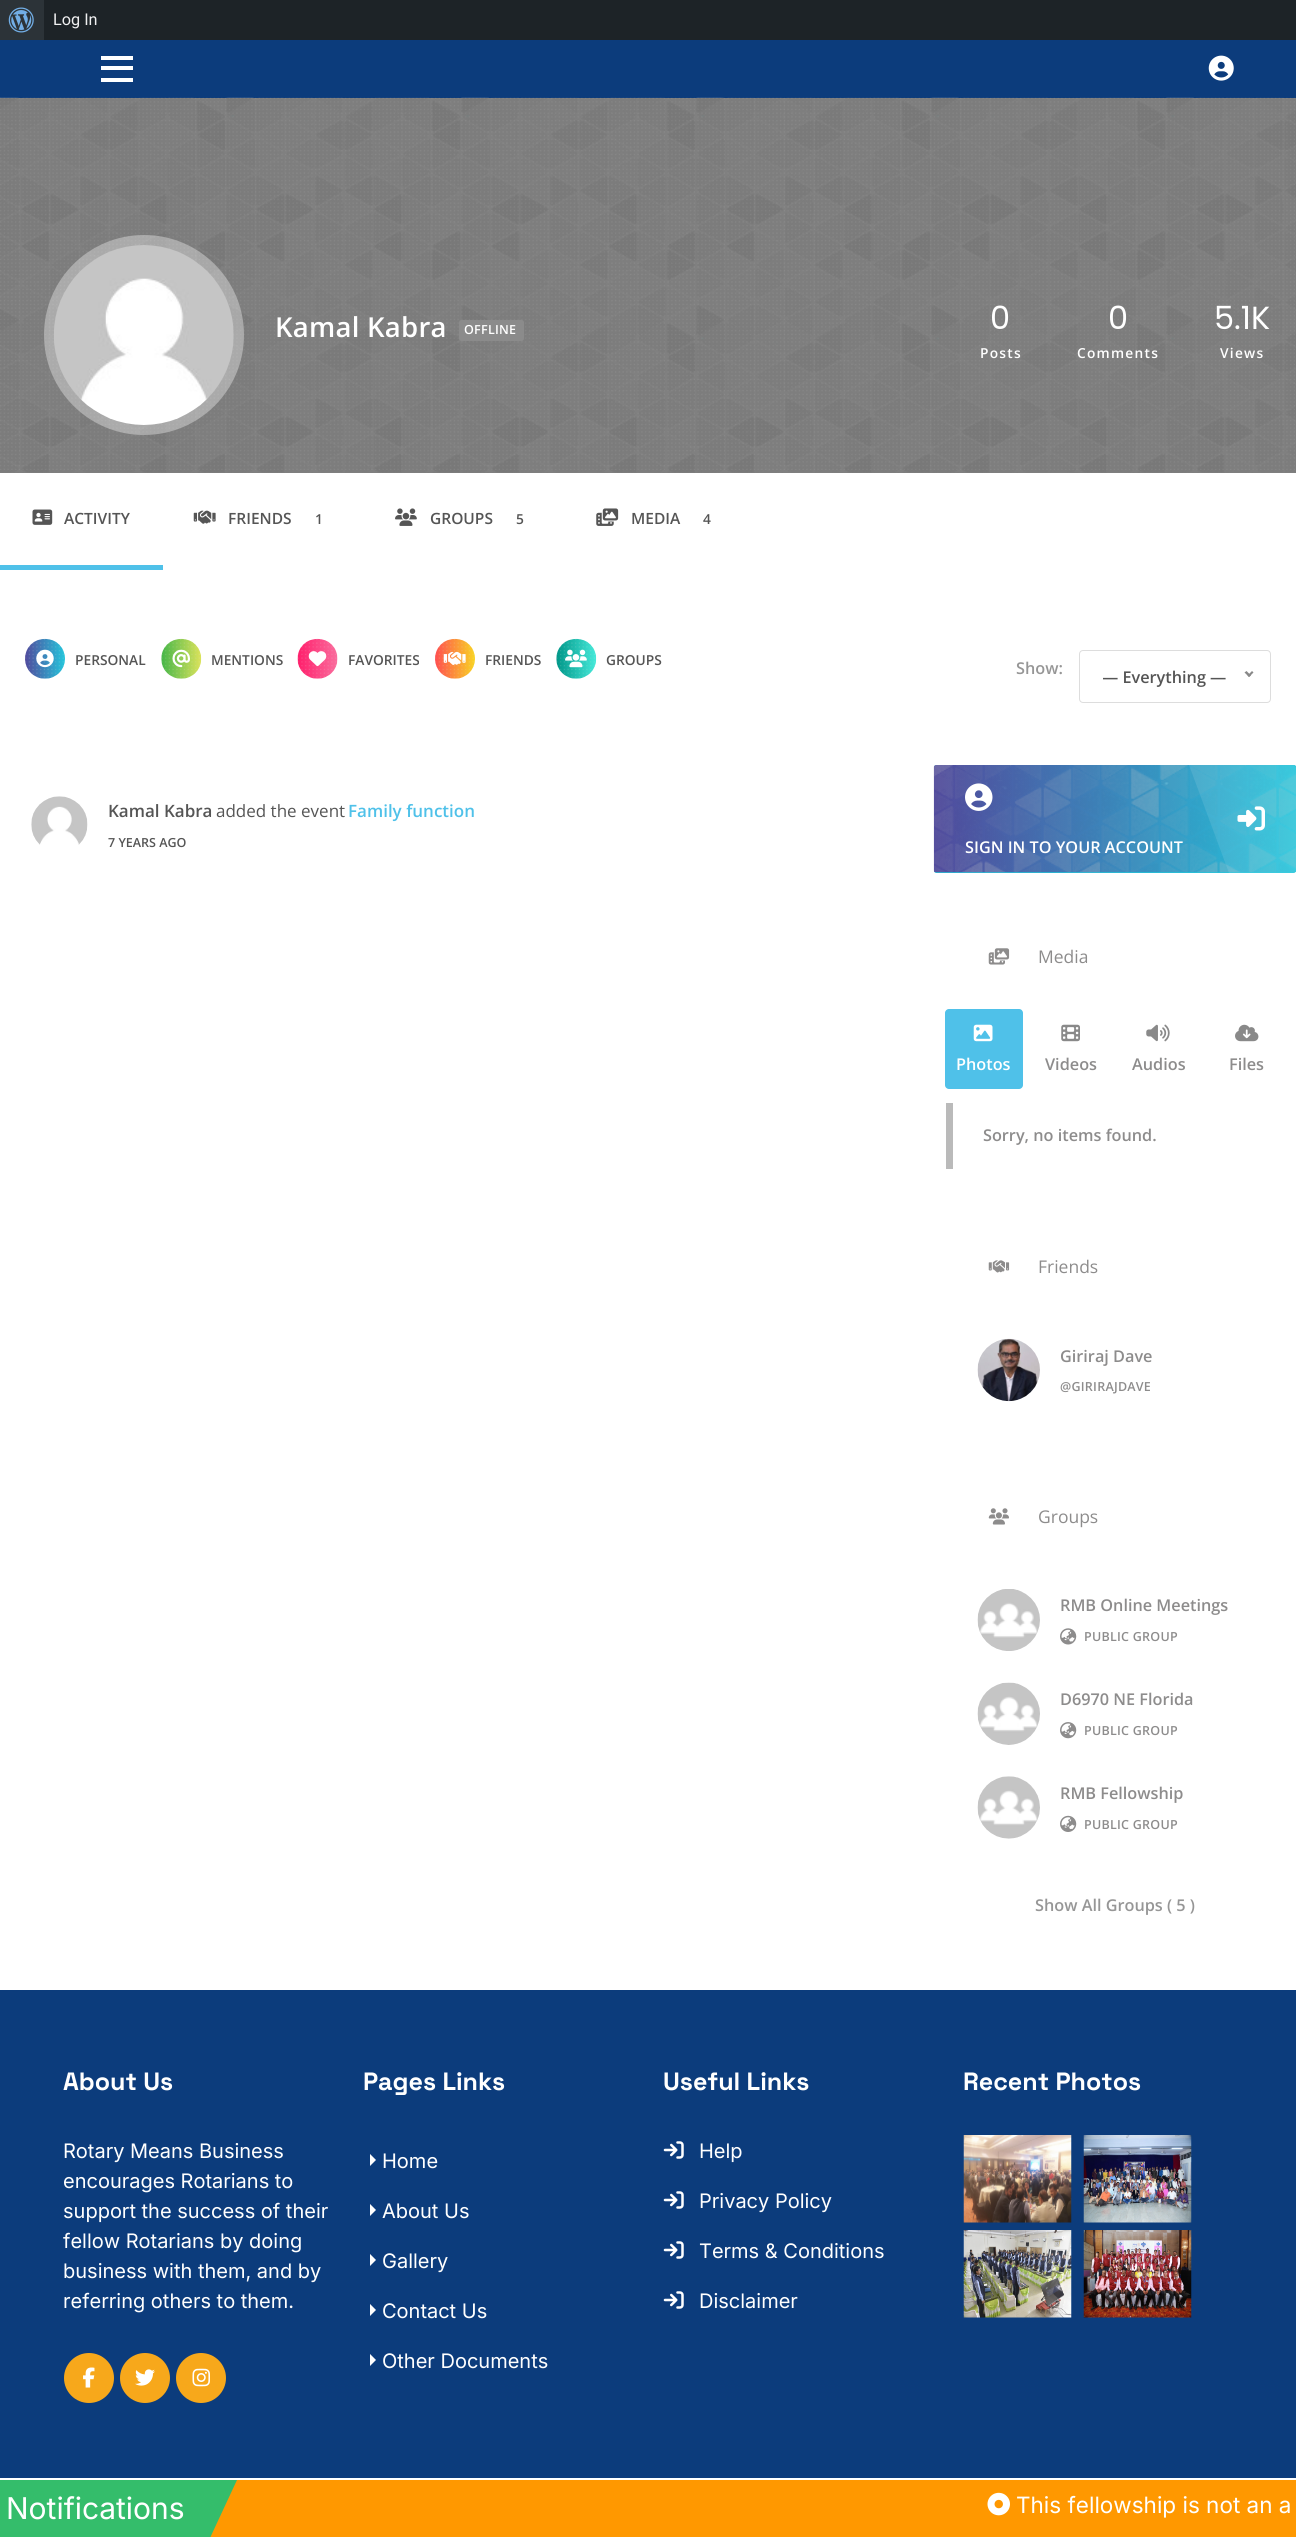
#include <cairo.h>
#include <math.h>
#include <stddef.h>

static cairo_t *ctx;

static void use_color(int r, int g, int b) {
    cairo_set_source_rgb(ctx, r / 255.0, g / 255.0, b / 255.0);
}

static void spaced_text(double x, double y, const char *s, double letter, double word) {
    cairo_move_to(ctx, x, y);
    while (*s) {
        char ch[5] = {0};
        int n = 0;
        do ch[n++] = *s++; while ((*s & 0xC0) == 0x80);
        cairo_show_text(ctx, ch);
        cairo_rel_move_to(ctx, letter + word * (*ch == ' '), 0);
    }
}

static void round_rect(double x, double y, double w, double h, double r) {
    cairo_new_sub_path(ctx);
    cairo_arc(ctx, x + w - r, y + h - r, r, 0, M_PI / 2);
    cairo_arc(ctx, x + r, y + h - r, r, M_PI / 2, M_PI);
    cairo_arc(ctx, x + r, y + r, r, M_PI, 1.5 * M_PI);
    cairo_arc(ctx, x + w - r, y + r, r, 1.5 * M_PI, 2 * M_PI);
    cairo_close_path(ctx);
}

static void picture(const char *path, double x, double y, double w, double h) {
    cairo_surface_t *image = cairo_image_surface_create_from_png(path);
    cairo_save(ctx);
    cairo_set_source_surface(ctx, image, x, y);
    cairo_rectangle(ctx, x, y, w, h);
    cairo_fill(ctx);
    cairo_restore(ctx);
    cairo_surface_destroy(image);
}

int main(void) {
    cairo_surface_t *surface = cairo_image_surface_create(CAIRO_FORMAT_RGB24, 1296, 2537);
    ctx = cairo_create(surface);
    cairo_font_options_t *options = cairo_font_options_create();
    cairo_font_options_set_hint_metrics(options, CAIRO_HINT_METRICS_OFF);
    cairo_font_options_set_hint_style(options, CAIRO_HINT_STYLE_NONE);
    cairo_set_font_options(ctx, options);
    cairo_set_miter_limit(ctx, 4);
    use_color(255, 255, 255);
    cairo_paint(ctx);
    use_color(128, 128, 128);
    cairo_rectangle(ctx, 0, 98, 1296, 375);
    cairo_fill(ctx);
    use_color(29, 35, 39);
    cairo_rectangle(ctx, 44, 0, 1252, 40);
    cairo_fill(ctx);
    use_color(44, 51, 56);
    cairo_rectangle(ctx, 0, 0, 44, 40);
    cairo_fill(ctx);
    picture("img1.png", 8, 7, 26, 26);
    cairo_select_font_face(ctx, "Roboto", CAIRO_FONT_SLANT_NORMAL, CAIRO_FONT_WEIGHT_NORMAL);
    cairo_set_font_size(ctx, 16.25);
    use_color(240, 240, 241);
    cairo_move_to(ctx, 53, 25);
    cairo_show_text(ctx, "Log In");
    use_color(12, 60, 124);
    cairo_rectangle(ctx, 0, 40, 1296, 58);
    cairo_fill(ctx);
    use_color(255, 255, 255);
    cairo_rectangle(ctx, 101, 56, 32, 4);
    cairo_fill(ctx);
    cairo_rectangle(ctx, 101, 66, 32, 4);
    cairo_fill(ctx);
    cairo_rectangle(ctx, 101, 78, 32, 4);
    cairo_fill(ctx);
    picture("img2.png", 1208, 55, 26, 26);
    picture("img3.png", 0, 97, 1296, 376);
    picture("img4.png", 0, 97, 1295, 373);
    cairo_set_source_rgba(ctx, 1, 1, 1, 0.35);
    cairo_arc(ctx, 144, 335, 100, 0, 2 * M_PI);
    cairo_fill(ctx);
    picture("img5.png", 54, 245, 180, 180);
    cairo_select_font_face(ctx, "Open Sans SemiBold", CAIRO_FONT_SLANT_NORMAL, CAIRO_FONT_WEIGHT_NORMAL);
    cairo_set_font_size(ctx, 27.5);
    use_color(255, 255, 255);
    spaced_text(275, 337, "Kamal Kabra", 0.25, 0);
    use_color(139, 139, 139);
    round_rect(459, 320, 65, 21, 2.5);
    cairo_fill(ctx);
    cairo_set_font_size(ctx, 12.5);
    use_color(255, 255, 255);
    spaced_text(464, 334, "OFFLINE", 0.25, 0);
    cairo_select_font_face(ctx, "Poppins", CAIRO_FONT_SLANT_NORMAL, CAIRO_FONT_WEIGHT_NORMAL);
    cairo_set_font_size(ctx, 32);
    cairo_move_to(ctx, 990, 329);
    cairo_show_text(ctx, "0");
    cairo_select_font_face(ctx, "Open Sans SemiBold", CAIRO_FONT_SLANT_NORMAL, CAIRO_FONT_WEIGHT_NORMAL);
    cairo_set_font_size(ctx, 13.75);
    spaced_text(980, 358, "Posts", 1.25, 0);
    cairo_select_font_face(ctx, "Poppins", CAIRO_FONT_SLANT_NORMAL, CAIRO_FONT_WEIGHT_NORMAL);
    cairo_set_font_size(ctx, 32);
    cairo_move_to(ctx, 1108, 329);
    cairo_show_text(ctx, "0");
    cairo_select_font_face(ctx, "Open Sans SemiBold", CAIRO_FONT_SLANT_NORMAL, CAIRO_FONT_WEIGHT_NORMAL);
    cairo_set_font_size(ctx, 13.75);
    spaced_text(1077, 358, "Comments", 1.25, 0);
    cairo_select_font_face(ctx, "Poppins", CAIRO_FONT_SLANT_NORMAL, CAIRO_FONT_WEIGHT_NORMAL);
    cairo_set_font_size(ctx, 32);
    cairo_move_to(ctx, 1214, 329);
    cairo_show_text(ctx, "5.1K");
    cairo_select_font_face(ctx, "Open Sans SemiBold", CAIRO_FONT_SLANT_NORMAL, CAIRO_FONT_WEIGHT_NORMAL);
    cairo_set_font_size(ctx, 13.75);
    spaced_text(1220, 358, "Views", 1.25, 0);
    use_color(79, 193, 233);
    cairo_rectangle(ctx, 0, 565, 163, 5);
    cairo_fill(ctx);
    picture("img6.png", 32, 509, 21, 16);
    cairo_set_font_size(ctx, 15.5);
    use_color(85, 85, 85);
    cairo_move_to(ctx, 64, 524);
    cairo_show_text(ctx, "ACTIVITY");
    picture("img7.png", 193, 510, 23, 14);
    cairo_move_to(ctx, 228, 524);
    cairo_show_text(ctx, "FRIENDS");
    cairo_set_font_size(ctx, 13.75);
    cairo_move_to(ctx, 315, 524);
    cairo_show_text(ctx, "1");
    picture("img8.png", 395, 508, 22, 18);
    cairo_set_font_size(ctx, 15.5);
    cairo_move_to(ctx, 430, 524);
    cairo_show_text(ctx, "GROUPS");
    cairo_set_font_size(ctx, 13.75);
    cairo_move_to(ctx, 516, 524);
    cairo_show_text(ctx, "5");
    picture("img9.png", 596, 508, 23, 18);
    cairo_set_font_size(ctx, 15.5);
    cairo_move_to(ctx, 631, 524);
    cairo_show_text(ctx, "MEDIA");
    cairo_set_font_size(ctx, 13.75);
    cairo_move_to(ctx, 703, 524);
    cairo_show_text(ctx, "4");
    picture("img10.png", 25, 638, 40, 41);
    picture("img11.png", 36, 649, 18, 19);
    cairo_move_to(ctx, 75, 665);
    cairo_show_text(ctx, "PERSONAL");
    picture("img12.png", 161, 638, 41, 41);
    picture("img13.png", 172, 649, 18, 19);
    cairo_move_to(ctx, 211, 665);
    cairo_show_text(ctx, "MENTIONS");
    picture("img14.png", 297, 638, 41, 41);
    picture("img15.png", 308, 651, 19, 16);
    cairo_move_to(ctx, 348, 665);
    cairo_show_text(ctx, "FAVORITES");
    picture("img16.png", 435, 638, 40, 41);
    picture("img17.png", 443, 651, 23, 14);
    cairo_move_to(ctx, 485, 665);
    cairo_show_text(ctx, "FRIENDS");
    picture("img18.png", 556, 638, 41, 41);
    picture("img19.png", 565, 649, 22, 19);
    cairo_move_to(ctx, 606, 665);
    cairo_show_text(ctx, "GROUPS");
    cairo_set_font_size(ctx, 16.25);
    use_color(150, 150, 150);
    cairo_move_to(ctx, 1016, 674);
    cairo_show_text(ctx, "Show:");
    round_rect(1079.5, 650.5, 191, 52, 3.5);
    use_color(221, 221, 221);
    cairo_set_line_width(ctx, 1);
    cairo_stroke(ctx);
    cairo_save(ctx);
    cairo_rectangle(ctx, 1103, 651, 123, 50);
    cairo_clip(ctx);
    use_color(85, 85, 85);
    cairo_move_to(ctx, 1102, 683);
    cairo_show_text(ctx, "— Everything —");
    cairo_restore(ctx);
    use_color(137, 137, 137);
    cairo_new_path(ctx);
    cairo_move_to(ctx, 1252, 671);
    cairo_line_to(ctx, 1253.5, 672.5);
    cairo_line_to(ctx, 1249, 677);
    cairo_line_to(ctx, 1247.5, 675.5);
    cairo_close_path(ctx);
    cairo_fill(ctx);
    cairo_new_path(ctx);
    cairo_move_to(ctx, 1246.5, 671);
    cairo_line_to(ctx, 1251, 675.5);
    cairo_line_to(ctx, 1249, 677);
    cairo_line_to(ctx, 1244.5, 672.5);
    cairo_close_path(ctx);
    cairo_fill(ctx);
    picture("img20.png", 31, 796, 57, 49);
    cairo_set_font_size(ctx, 17);
    use_color(85, 85, 85);
    cairo_move_to(ctx, 108, 817);
    cairo_show_text(ctx, "Kamal Kabra");
    cairo_select_font_face(ctx, "Open Sans", CAIRO_FONT_SLANT_NORMAL, CAIRO_FONT_WEIGHT_NORMAL);
    cairo_move_to(ctx, 216, 817);
    cairo_show_text(ctx, "added the event");
    cairo_select_font_face(ctx, "Open Sans SemiBold", CAIRO_FONT_SLANT_NORMAL, CAIRO_FONT_WEIGHT_NORMAL);
    use_color(79, 193, 233);
    cairo_move_to(ctx, 348, 817);
    cairo_show_text(ctx, "Family function");
    cairo_set_font_size(ctx, 12.5);
    use_color(85, 85, 85);
    cairo_move_to(ctx, 108, 847);
    cairo_show_text(ctx, "7 YEARS AGO");
    use_color(36, 198, 220);
    round_rect(934, 765, 362, 108, 2.5);
    cairo_fill(ctx);
    picture("img21.png", 933, 765, 363, 108);
    picture("img22.png", 965, 783, 28, 28);
    cairo_set_source_rgba(ctx, 1, 1, 1, 0.1);
    cairo_new_path(ctx);
    cairo_move_to(ctx, 1229, 873);
    cairo_line_to(ctx, 1189, 765);
    cairo_line_to(ctx, 1294, 765);
    cairo_curve_to(ctx, 1295, 765, 1296, 766, 1296, 768);
    cairo_line_to(ctx, 1296, 870);
    cairo_curve_to(ctx, 1296, 872, 1295, 873, 1294, 873);
    cairo_close_path(ctx);
    cairo_fill(ctx);
    picture("img23.png", 1237, 806, 28, 25);
    cairo_set_font_size(ctx, 16.25);
    use_color(255, 255, 255);
    cairo_move_to(ctx, 965, 853);
    cairo_show_text(ctx, "SIGN IN TO YOUR ACCOUNT");
    picture("img24.png", 988, 948, 22, 17);
    cairo_select_font_face(ctx, "Open Sans", CAIRO_FONT_SLANT_NORMAL, CAIRO_FONT_WEIGHT_NORMAL);
    cairo_set_font_size(ctx, 17.5);
    use_color(141, 140, 140);
    cairo_move_to(ctx, 1038, 963);
    cairo_show_text(ctx, "Media");
    use_color(79, 193, 233);
    round_rect(945, 1009, 78, 80, 4);
    cairo_fill(ctx);
    picture("img25.png", 973, 1024, 20, 18);
    cairo_select_font_face(ctx, "Open Sans SemiBold", CAIRO_FONT_SLANT_NORMAL, CAIRO_FONT_WEIGHT_NORMAL);
    cairo_set_font_size(ctx, 16.25);
    use_color(255, 255, 255);
    cairo_move_to(ctx, 956, 1070);
    cairo_show_text(ctx, "Photos");
    picture("img26.png", 1061, 1024, 19, 18);
    use_color(141, 140, 140);
    cairo_move_to(ctx, 1045, 1070);
    cairo_show_text(ctx, "Videos");
    picture("img27.png", 1146, 1024, 24, 18);
    cairo_move_to(ctx, 1132, 1070);
    cairo_show_text(ctx, "Audios");
    picture("img28.png", 1235, 1024, 24, 18);
    cairo_move_to(ctx, 1229, 1070);
    cairo_show_text(ctx, "Files");
    use_color(186, 186, 186);
    cairo_rectangle(ctx, 946, 1103, 7, 66);
    cairo_fill(ctx);
    use_color(141, 140, 140);
    cairo_move_to(ctx, 983, 1141);
    cairo_show_text(ctx, "Sorry, no items found.");
    picture("img29.png", 988, 1260, 22, 13);
    cairo_select_font_face(ctx, "Open Sans", CAIRO_FONT_SLANT_NORMAL, CAIRO_FONT_WEIGHT_NORMAL);
    cairo_set_font_size(ctx, 17.5);
    cairo_move_to(ctx, 1038, 1273);
    cairo_show_text(ctx, "Friends");
    picture("img30.png", 977, 1338, 63, 64);
    cairo_select_font_face(ctx, "Open Sans SemiBold", CAIRO_FONT_SLANT_NORMAL, CAIRO_FONT_WEIGHT_NORMAL);
    cairo_set_font_size(ctx, 16.25);
    cairo_move_to(ctx, 1060, 1362);
    cairo_show_text(ctx, "Giriraj Dave");
    cairo_set_font_size(ctx, 12.5);
    spaced_text(1060, 1391, "@GIRIRAJDAVE", 0.25, 0);
    picture("img31.png", 988, 1508, 21, 17);
    cairo_select_font_face(ctx, "Open Sans", CAIRO_FONT_SLANT_NORMAL, CAIRO_FONT_WEIGHT_NORMAL);
    cairo_set_font_size(ctx, 17.5);
    cairo_move_to(ctx, 1038, 1523);
    cairo_show_text(ctx, "Groups");
    picture("img32.png", 977, 1589, 63, 62);
    cairo_select_font_face(ctx, "Open Sans SemiBold", CAIRO_FONT_SLANT_NORMAL, CAIRO_FONT_WEIGHT_NORMAL);
    cairo_set_font_size(ctx, 16.25);
    cairo_move_to(ctx, 1060, 1611);
    cairo_show_text(ctx, "RMB Online Meetings");
    picture("img33.png", 1060, 1628, 17, 17);
    cairo_set_font_size(ctx, 12.5);
    spaced_text(1084, 1641, "PUBLIC GROUP", 0.25, 0);
    picture("img34.png", 977, 1682, 63, 63);
    cairo_set_font_size(ctx, 16.25);
    cairo_move_to(ctx, 1060, 1705);
    cairo_show_text(ctx, "D6970 NE Florida");
    picture("img35.png", 1060, 1722, 17, 17);
    cairo_set_font_size(ctx, 12.5);
    spaced_text(1084, 1735, "PUBLIC GROUP", 0.25, 0);
    picture("img36.png", 977, 1776, 63, 63);
    cairo_set_font_size(ctx, 16.25);
    cairo_move_to(ctx, 1060, 1799);
    cairo_show_text(ctx, "RMB Fellowship");
    picture("img37.png", 1060, 1815, 17, 17);
    cairo_set_font_size(ctx, 12.5);
    spaced_text(1084, 1829, "PUBLIC GROUP", 0.25, 0);
    cairo_set_font_size(ctx, 16.25);
    use_color(150, 150, 150);
    cairo_move_to(ctx, 1035, 1911);
    cairo_show_text(ctx, "Show All Groups ( 5 )");
    use_color(12, 60, 124);
    cairo_rectangle(ctx, 0, 1990, 1296, 488);
    cairo_fill(ctx);
    cairo_select_font_face(ctx, "Space Grotesk", CAIRO_FONT_SLANT_NORMAL, CAIRO_FONT_WEIGHT_BOLD);
    cairo_set_font_size(ctx, 25);
    use_color(255, 255, 255);
    cairo_move_to(ctx, 63, 2090);
    cairo_show_text(ctx, "About Us");
    cairo_select_font_face(ctx, "Inter", CAIRO_FONT_SLANT_NORMAL, CAIRO_FONT_WEIGHT_NORMAL);
    cairo_set_font_size(ctx, 20);
    cairo_move_to(ctx, 63, 2158);
    cairo_show_text(ctx, "Rotary Means Business");
    cairo_move_to(ctx, 63, 2188);
    cairo_show_text(ctx, "encourages Rotarians to");
    cairo_move_to(ctx, 63, 2218);
    cairo_show_text(ctx, "support the success of their");
    cairo_move_to(ctx, 63, 2248);
    cairo_show_text(ctx, "fellow Rotarians by doing");
    cairo_move_to(ctx, 63, 2278);
    cairo_show_text(ctx, "business with them, and by");
    cairo_move_to(ctx, 63, 2308);
    cairo_show_text(ctx, "referring others to them.");
    use_color(247, 168, 27);
    cairo_new_path(ctx);
    cairo_arc(ctx, 89, 2378, 25, 0, 2 * M_PI);
    cairo_fill(ctx);
    picture("img38.png", 83, 2367, 12, 21);
    cairo_arc(ctx, 145, 2378, 25, 0, 2 * M_PI);
    cairo_fill(ctx);
    picture("img39.png", 135, 2369, 20, 17);
    cairo_arc(ctx, 201, 2378, 25, 0, 2 * M_PI);
    cairo_fill(ctx);
    picture("img40.png", 192, 2368, 18, 19);
    cairo_select_font_face(ctx, "Space Grotesk", CAIRO_FONT_SLANT_NORMAL, CAIRO_FONT_WEIGHT_BOLD);
    cairo_set_font_size(ctx, 25);
    use_color(255, 255, 255);
    cairo_move_to(ctx, 363, 2090);
    cairo_show_text(ctx, "Pages Links");
    cairo_new_path(ctx);
    cairo_move_to(ctx, 370, 2166);
    cairo_line_to(ctx, 370, 2154);
    cairo_line_to(ctx, 376, 2160);
    cairo_close_path(ctx);
    cairo_fill(ctx);
    cairo_select_font_face(ctx, "Inter", CAIRO_FONT_SLANT_NORMAL, CAIRO_FONT_WEIGHT_NORMAL);
    cairo_set_font_size(ctx, 20);
    cairo_move_to(ctx, 382, 2168);
    cairo_show_text(ctx, "Home");
    cairo_new_path(ctx);
    cairo_move_to(ctx, 370, 2216);
    cairo_line_to(ctx, 370, 2204);
    cairo_line_to(ctx, 376, 2210);
    cairo_close_path(ctx);
    cairo_fill(ctx);
    cairo_move_to(ctx, 382, 2218);
    cairo_show_text(ctx, "About Us");
    cairo_new_path(ctx);
    cairo_move_to(ctx, 370, 2266);
    cairo_line_to(ctx, 370, 2254);
    cairo_line_to(ctx, 376, 2260);
    cairo_close_path(ctx);
    cairo_fill(ctx);
    cairo_move_to(ctx, 382, 2268);
    cairo_show_text(ctx, "Gallery");
    cairo_new_path(ctx);
    cairo_move_to(ctx, 370, 2316);
    cairo_line_to(ctx, 370, 2304);
    cairo_line_to(ctx, 376, 2310);
    cairo_close_path(ctx);
    cairo_fill(ctx);
    cairo_move_to(ctx, 382, 2318);
    cairo_show_text(ctx, "Contact Us");
    cairo_new_path(ctx);
    cairo_move_to(ctx, 370, 2366);
    cairo_line_to(ctx, 370, 2354);
    cairo_line_to(ctx, 376, 2360);
    cairo_close_path(ctx);
    cairo_fill(ctx);
    cairo_move_to(ctx, 382, 2368);
    cairo_show_text(ctx, "Other Documents");
    cairo_select_font_face(ctx, "Space Grotesk", CAIRO_FONT_SLANT_NORMAL, CAIRO_FONT_WEIGHT_BOLD);
    cairo_set_font_size(ctx, 25);
    cairo_move_to(ctx, 663, 2090);
    cairo_show_text(ctx, "Useful Links");
    picture("img41.png", 663, 2141, 21, 18);
    cairo_select_font_face(ctx, "Inter", CAIRO_FONT_SLANT_NORMAL, CAIRO_FONT_WEIGHT_NORMAL);
    cairo_set_font_size(ctx, 20);
    cairo_move_to(ctx, 699, 2158);
    cairo_show_text(ctx, "Help");
    picture("img41.png", 663, 2191, 21, 18);
    cairo_move_to(ctx, 699, 2208);
    cairo_show_text(ctx, "Privacy Policy");
    picture("img41.png", 663, 2241, 21, 18);
    cairo_move_to(ctx, 699, 2258);
    cairo_show_text(ctx, "Terms & Conditions");
    picture("img41.png", 663, 2291, 21, 18);
    cairo_move_to(ctx, 699, 2308);
    cairo_show_text(ctx, "Disclaimer");
    cairo_select_font_face(ctx, "Space Grotesk", CAIRO_FONT_SLANT_NORMAL, CAIRO_FONT_WEIGHT_BOLD);
    cairo_set_font_size(ctx, 25);
    cairo_move_to(ctx, 963, 2090);
    cairo_show_text(ctx, "Recent Photos");
    picture("img42.png", 963, 2135, 109, 88);
    picture("img43.png", 1083, 2135, 109, 88);
    picture("img44.png", 963, 2230, 109, 88);
    picture("img45.png", 1083, 2230, 109, 88);
    use_color(255, 152, 0);
    cairo_rectangle(ctx, 210, 2480, 1086, 57);
    cairo_fill(ctx);
    use_color(52, 189, 107);
    cairo_new_path(ctx);
    cairo_move_to(ctx, 112, 2480);
    cairo_line_to(ctx, 237, 2480);
    cairo_line_to(ctx, 210, 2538);
    cairo_line_to(ctx, 85, 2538);
    cairo_close_path(ctx);
    cairo_fill(ctx);
    cairo_rectangle(ctx, 0, 2480, 112, 57);
    cairo_fill(ctx);
    cairo_select_font_face(ctx, "Inter", CAIRO_FONT_SLANT_NORMAL, CAIRO_FONT_WEIGHT_NORMAL);
    cairo_set_font_size(ctx, 30);
    use_color(255, 255, 255);
    cairo_move_to(ctx, 6, 2519);
    cairo_show_text(ctx, "Notifications");
    picture("img46.png", 987, 2492, 23, 24);
    cairo_set_font_size(ctx, 22.5);
    cairo_move_to(ctx, 1016, 2513);
    cairo_show_text(ctx, "This fellowship is not an a");
    cairo_surface_write_to_png(surface, "result.png");
    cairo_font_options_destroy(options);
    cairo_destroy(ctx);
    cairo_surface_destroy(surface);
    return 0;
}
